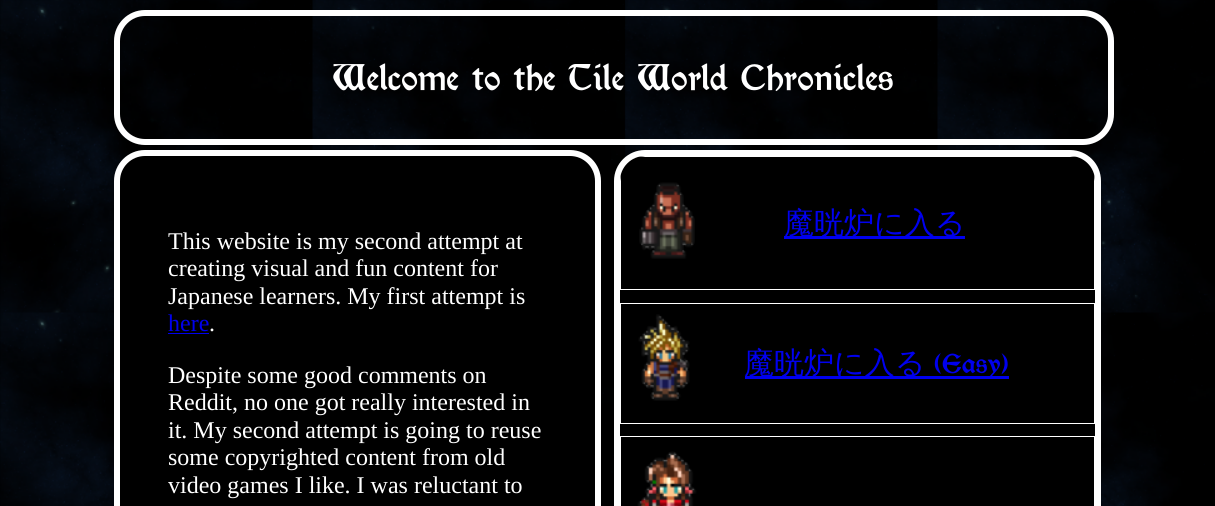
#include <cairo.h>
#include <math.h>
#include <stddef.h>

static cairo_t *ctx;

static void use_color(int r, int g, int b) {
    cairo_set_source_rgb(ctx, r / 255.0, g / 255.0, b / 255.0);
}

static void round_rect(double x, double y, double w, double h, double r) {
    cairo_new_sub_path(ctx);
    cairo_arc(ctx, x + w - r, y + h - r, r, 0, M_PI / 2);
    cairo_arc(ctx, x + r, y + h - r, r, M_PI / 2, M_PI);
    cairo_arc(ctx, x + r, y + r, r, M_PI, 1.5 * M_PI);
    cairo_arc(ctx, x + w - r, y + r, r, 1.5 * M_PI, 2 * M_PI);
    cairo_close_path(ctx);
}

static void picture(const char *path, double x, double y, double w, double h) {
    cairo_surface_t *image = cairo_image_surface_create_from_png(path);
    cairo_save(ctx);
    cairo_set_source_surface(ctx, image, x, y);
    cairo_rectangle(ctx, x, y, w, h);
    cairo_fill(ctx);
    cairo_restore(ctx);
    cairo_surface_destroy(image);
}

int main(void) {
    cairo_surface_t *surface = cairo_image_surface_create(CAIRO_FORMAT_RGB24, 1215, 506);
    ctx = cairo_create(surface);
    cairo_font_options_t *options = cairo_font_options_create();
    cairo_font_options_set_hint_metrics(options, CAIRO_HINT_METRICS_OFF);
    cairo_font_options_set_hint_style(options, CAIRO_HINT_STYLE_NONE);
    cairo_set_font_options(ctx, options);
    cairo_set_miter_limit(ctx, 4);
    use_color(255, 255, 255);
    cairo_paint(ctx);
    picture("img1.png", 0, 0, 1215, 506);
    round_rect(117, 13, 994, 129, 28);
    use_color(255, 255, 255);
    cairo_set_line_width(ctx, 6);
    cairo_stroke(ctx);
    cairo_select_font_face(ctx, "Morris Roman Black", CAIRO_FONT_SLANT_NORMAL, CAIRO_FONT_WEIGHT_NORMAL);
    cairo_set_font_size(ctx, 40);
    cairo_move_to(ctx, 333, 90);
    cairo_show_text(ctx, "Welcome to the Tile World Chronicles");
    use_color(0, 0, 0);
    round_rect(117, 153, 481, 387, 28);
    cairo_fill_preserve(ctx);
    use_color(255, 255, 255);
    cairo_stroke(ctx);
    cairo_select_font_face(ctx, "Liberation Serif", CAIRO_FONT_SLANT_NORMAL, CAIRO_FONT_WEIGHT_NORMAL);
    cairo_set_font_size(ctx, 24);
    cairo_move_to(ctx, 168, 249);
    cairo_show_text(ctx, "This website is my second attempt at");
    cairo_move_to(ctx, 168, 276);
    cairo_show_text(ctx, "creating visual and fun content for");
    cairo_move_to(ctx, 168, 304);
    cairo_show_text(ctx, "Japanese learners. My first attempt is");
    use_color(0, 0, 238);
    cairo_move_to(ctx, 168, 331);
    cairo_show_text(ctx, "here");
    cairo_rectangle(ctx, 168, 333, 41, 1);
    cairo_fill(ctx);
    use_color(255, 255, 255);
    cairo_move_to(ctx, 209, 331);
    cairo_show_text(ctx, ".");
    cairo_move_to(ctx, 168, 383);
    cairo_show_text(ctx, "Despite some good comments on");
    cairo_move_to(ctx, 168, 410);
    cairo_show_text(ctx, "Reddit, no one got really interested in");
    cairo_move_to(ctx, 168, 438);
    cairo_show_text(ctx, "it. My second attempt is going to reuse");
    cairo_move_to(ctx, 168, 465);
    cairo_show_text(ctx, "some copyrighted content from old");
    cairo_move_to(ctx, 168, 493);
    cairo_show_text(ctx, "video games I like. I was reluctant to");
    use_color(0, 0, 0);
    round_rect(617, 153, 481, 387, 28);
    cairo_fill_preserve(ctx);
    use_color(255, 255, 255);
    cairo_stroke(ctx);
    cairo_set_fill_rule(ctx, CAIRO_FILL_RULE_EVEN_ODD);
    cairo_new_path(ctx);
    cairo_move_to(ctx, 620, 181);
    cairo_line_to(ctx, 620, 290);
    cairo_line_to(ctx, 1095, 290);
    cairo_line_to(ctx, 1095, 181);
    cairo_line_to(ctx, 1094, 174);
    cairo_line_to(ctx, 1094, 289);
    cairo_line_to(ctx, 621, 289);
    cairo_line_to(ctx, 621, 174);
    cairo_close_path(ctx);
    cairo_move_to(ctx, 645, 156);
    cairo_line_to(ctx, 638, 157);
    cairo_line_to(ctx, 1077, 157);
    cairo_line_to(ctx, 1070, 156);
    cairo_close_path(ctx);
    cairo_fill(ctx);
    picture("img2.png", 639, 182, 56, 77);
    use_color(0, 0, 238);
    cairo_rectangle(ctx, 784, 236, 181, 3);
    cairo_fill(ctx);
    cairo_select_font_face(ctx, "WenQuanYi Zen Hei Medium", CAIRO_FONT_SLANT_NORMAL, CAIRO_FONT_WEIGHT_NORMAL);
    cairo_set_font_size(ctx, 30);
    cairo_move_to(ctx, 784, 233);
    cairo_show_text(ctx, "魔晄炉に入る");
    cairo_rectangle(ctx, 620.5, 303.5, 474, 120);
    use_color(255, 255, 255);
    cairo_set_line_width(ctx, 1);
    cairo_stroke(ctx);
    picture("img3.png", 638, 314, 52, 87);
    use_color(0, 0, 238);
    cairo_rectangle(ctx, 745, 376, 264, 3);
    cairo_fill(ctx);
    cairo_move_to(ctx, 744, 373);
    cairo_show_text(ctx, "魔晄炉に入る");
    cairo_select_font_face(ctx, "Morris Roman Black", CAIRO_FONT_SLANT_NORMAL, CAIRO_FONT_WEIGHT_NORMAL);
    cairo_move_to(ctx, 935, 373);
    cairo_show_text(ctx, "(Easy)");
    cairo_rectangle(ctx, 620.5, 436.5, 474, 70);
    use_color(255, 255, 255);
    cairo_stroke(ctx);
    picture("img4.png", 637, 451, 60, 55);
    cairo_surface_write_to_png(surface, "result.png");
    cairo_font_options_destroy(options);
    cairo_destroy(ctx);
    cairo_surface_destroy(surface);
    return 0;
}
